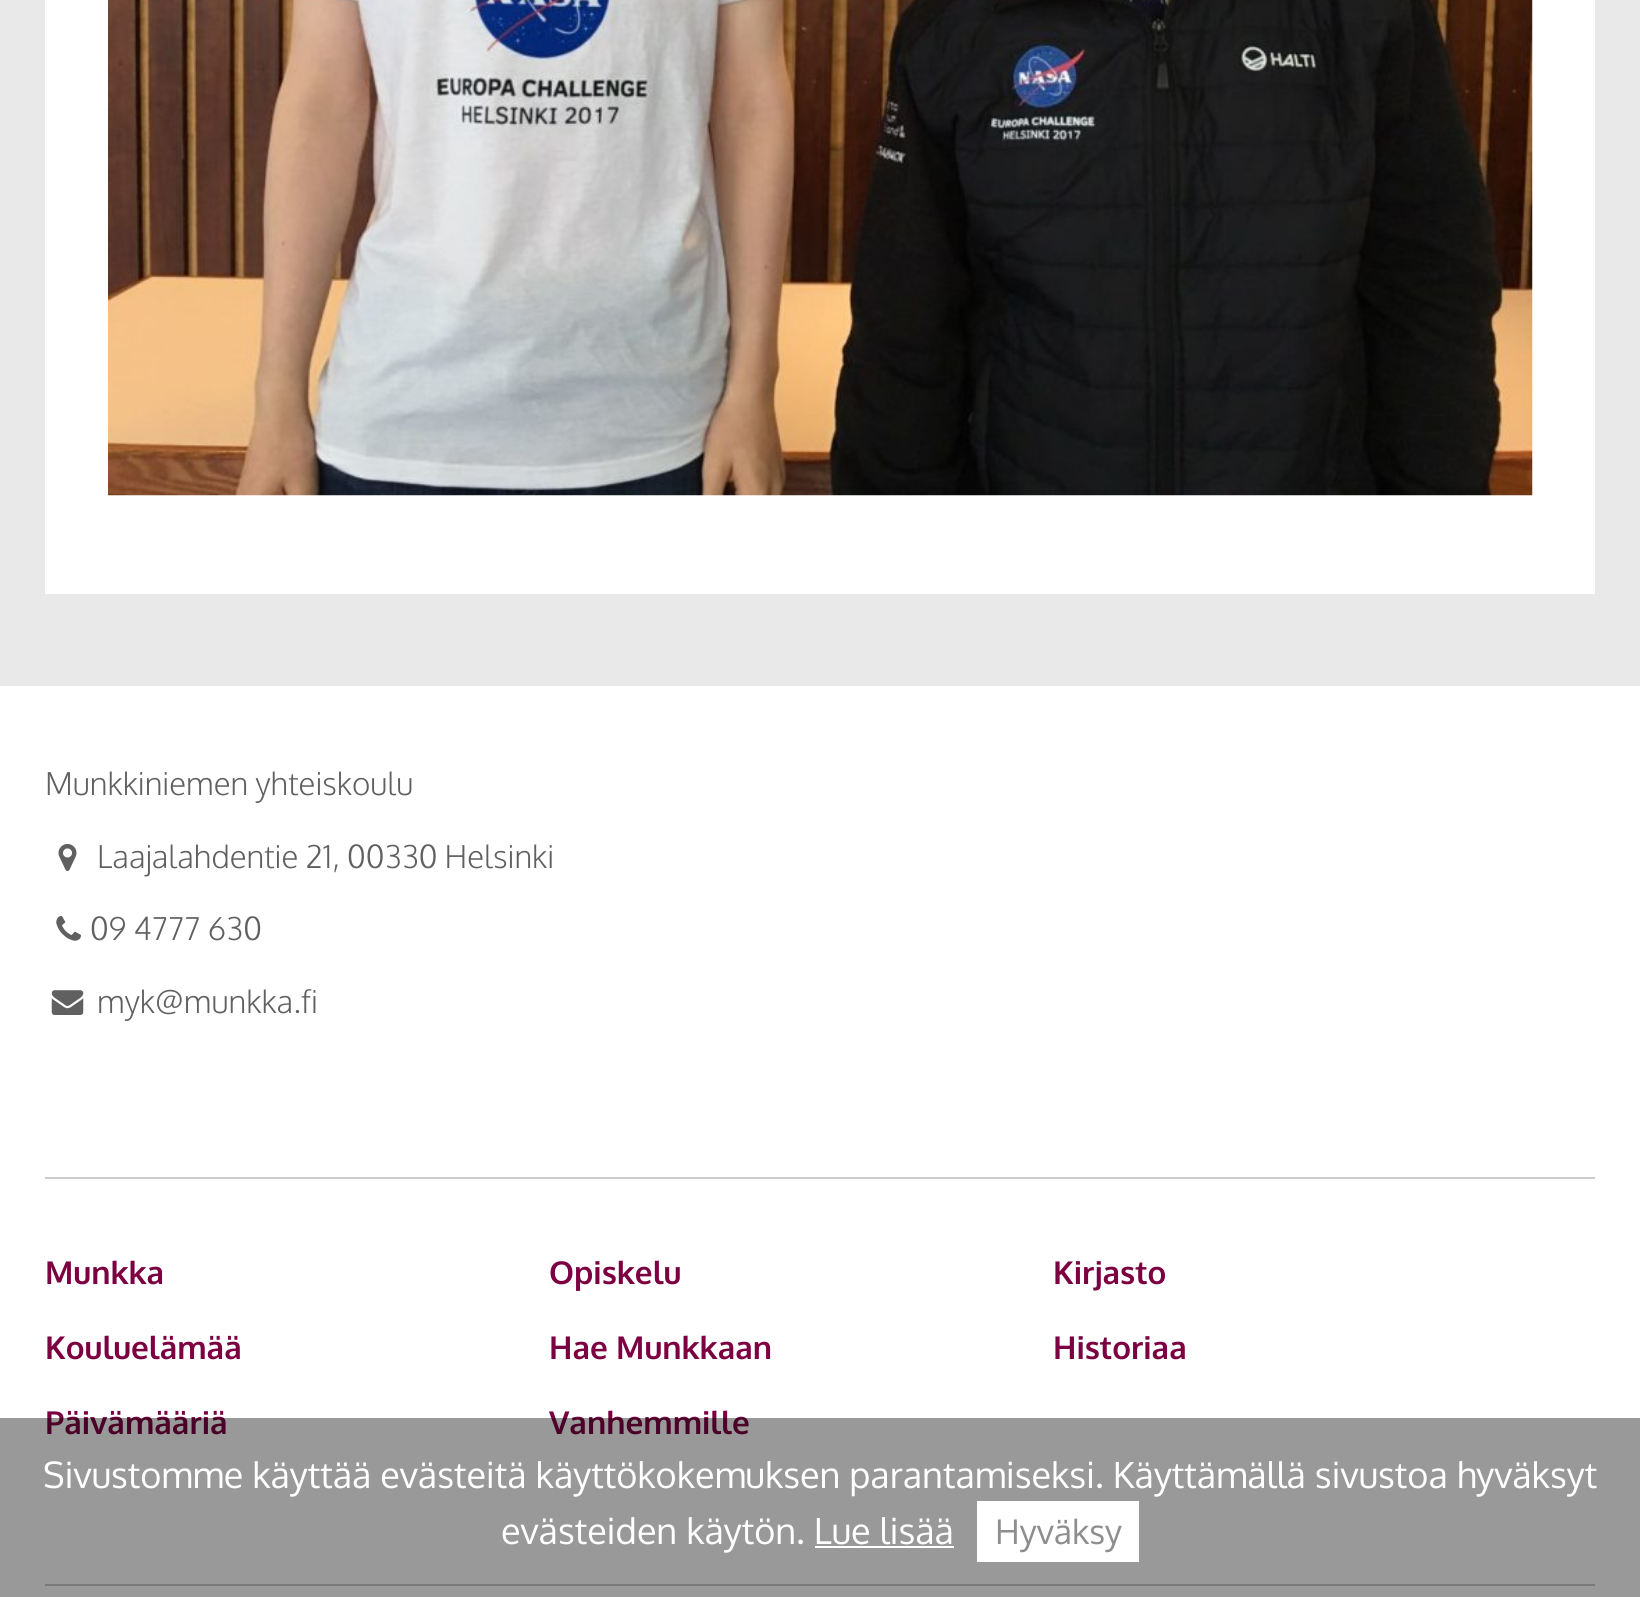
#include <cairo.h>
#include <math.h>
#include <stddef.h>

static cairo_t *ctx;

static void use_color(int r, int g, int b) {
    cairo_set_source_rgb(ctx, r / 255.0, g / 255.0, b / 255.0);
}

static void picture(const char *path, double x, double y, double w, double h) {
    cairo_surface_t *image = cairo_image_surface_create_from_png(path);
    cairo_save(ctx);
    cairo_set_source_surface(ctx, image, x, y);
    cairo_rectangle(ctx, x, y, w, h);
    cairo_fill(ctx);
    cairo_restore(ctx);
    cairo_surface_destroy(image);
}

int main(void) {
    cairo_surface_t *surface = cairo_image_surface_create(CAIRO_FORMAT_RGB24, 1640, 1597);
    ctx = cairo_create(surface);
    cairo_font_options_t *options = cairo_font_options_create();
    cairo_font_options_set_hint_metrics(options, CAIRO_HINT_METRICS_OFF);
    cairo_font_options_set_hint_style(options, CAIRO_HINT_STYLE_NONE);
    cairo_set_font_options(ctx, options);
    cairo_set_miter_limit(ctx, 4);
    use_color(233, 233, 233);
    cairo_paint(ctx);
    use_color(255, 255, 255);
    cairo_rectangle(ctx, 45, 0, 1550, 594);
    cairo_fill(ctx);
    picture("img1.png", 108, 0, 1425, 496);
    cairo_rectangle(ctx, 0, 686, 1640, 911);
    cairo_fill(ctx);
    cairo_select_font_face(ctx, "Oxygen Light", CAIRO_FONT_SLANT_NORMAL, CAIRO_FONT_WEIGHT_NORMAL);
    cairo_set_font_size(ctx, 31.5);
    use_color(96, 96, 96);
    cairo_move_to(ctx, 45, 795);
    cairo_show_text(ctx, "Munkkiniemen yhteiskoulu");
    picture("img2.png", 58, 844, 19, 27);
    cairo_move_to(ctx, 97, 868);
    cairo_show_text(ctx, "Laajalahdentie 21, 00330 Helsinki");
    picture("img3.png", 56, 916, 25, 25);
    cairo_move_to(ctx, 90, 940);
    cairo_show_text(ctx, "09 4777 630");
    picture("img4.png", 51, 990, 33, 25);
    cairo_move_to(ctx, 97, 1013);
    cairo_show_text(ctx, "myk@munkka.fi");
    use_color(204, 204, 204);
    cairo_rectangle(ctx, 45, 1177, 1550, 2);
    cairo_fill(ctx);
    cairo_select_font_face(ctx, "Oxygen", CAIRO_FONT_SLANT_NORMAL, CAIRO_FONT_WEIGHT_BOLD);
    use_color(124, 0, 65);
    cairo_move_to(ctx, 45, 1284);
    cairo_show_text(ctx, "Munkka");
    cairo_move_to(ctx, 549, 1284);
    cairo_show_text(ctx, "Opiskelu");
    cairo_move_to(ctx, 1053, 1284);
    cairo_show_text(ctx, "Kirjasto");
    cairo_move_to(ctx, 45, 1359);
    cairo_show_text(ctx, "Kouluelämää");
    cairo_move_to(ctx, 549, 1359);
    cairo_show_text(ctx, "Hae Munkkaan");
    cairo_move_to(ctx, 1053, 1359);
    cairo_show_text(ctx, "Historiaa");
    cairo_move_to(ctx, 45, 1434);
    cairo_show_text(ctx, "Päivämääriä");
    cairo_move_to(ctx, 549, 1434);
    cairo_show_text(ctx, "Vanhemmille");
    use_color(204, 204, 204);
    cairo_rectangle(ctx, 45, 1584, 1550, 2);
    cairo_fill(ctx);
    cairo_set_source_rgba(ctx, 0, 0, 0, 0.4);
    cairo_rectangle(ctx, 0, 1418, 1640, 179);
    cairo_fill(ctx);
    cairo_select_font_face(ctx, "Oxygen", CAIRO_FONT_SLANT_NORMAL, CAIRO_FONT_WEIGHT_NORMAL);
    cairo_set_font_size(ctx, 36);
    use_color(255, 255, 255);
    cairo_move_to(ctx, 43, 1488);
    cairo_show_text(ctx, "Sivustomme käyttää evästeitä käyttökokemuksen parantamiseksi. Käyttämällä sivustoa hyväksyt");
    cairo_move_to(ctx, 501, 1544);
    cairo_show_text(ctx, "evästeiden käytön. Lue lisää");
    cairo_rectangle(ctx, 977, 1501, 162, 61);
    cairo_fill(ctx);
    cairo_set_font_size(ctx, 34);
    use_color(142, 142, 142);
    cairo_move_to(ctx, 995, 1544);
    cairo_show_text(ctx, "Hyväksy");
    use_color(255, 255, 255);
    cairo_rectangle(ctx, 815, 1546, 139, 2);
    cairo_fill(ctx);
    cairo_surface_write_to_png(surface, "result.png");
    cairo_font_options_destroy(options);
    cairo_destroy(ctx);
    cairo_surface_destroy(surface);
    return 0;
}
